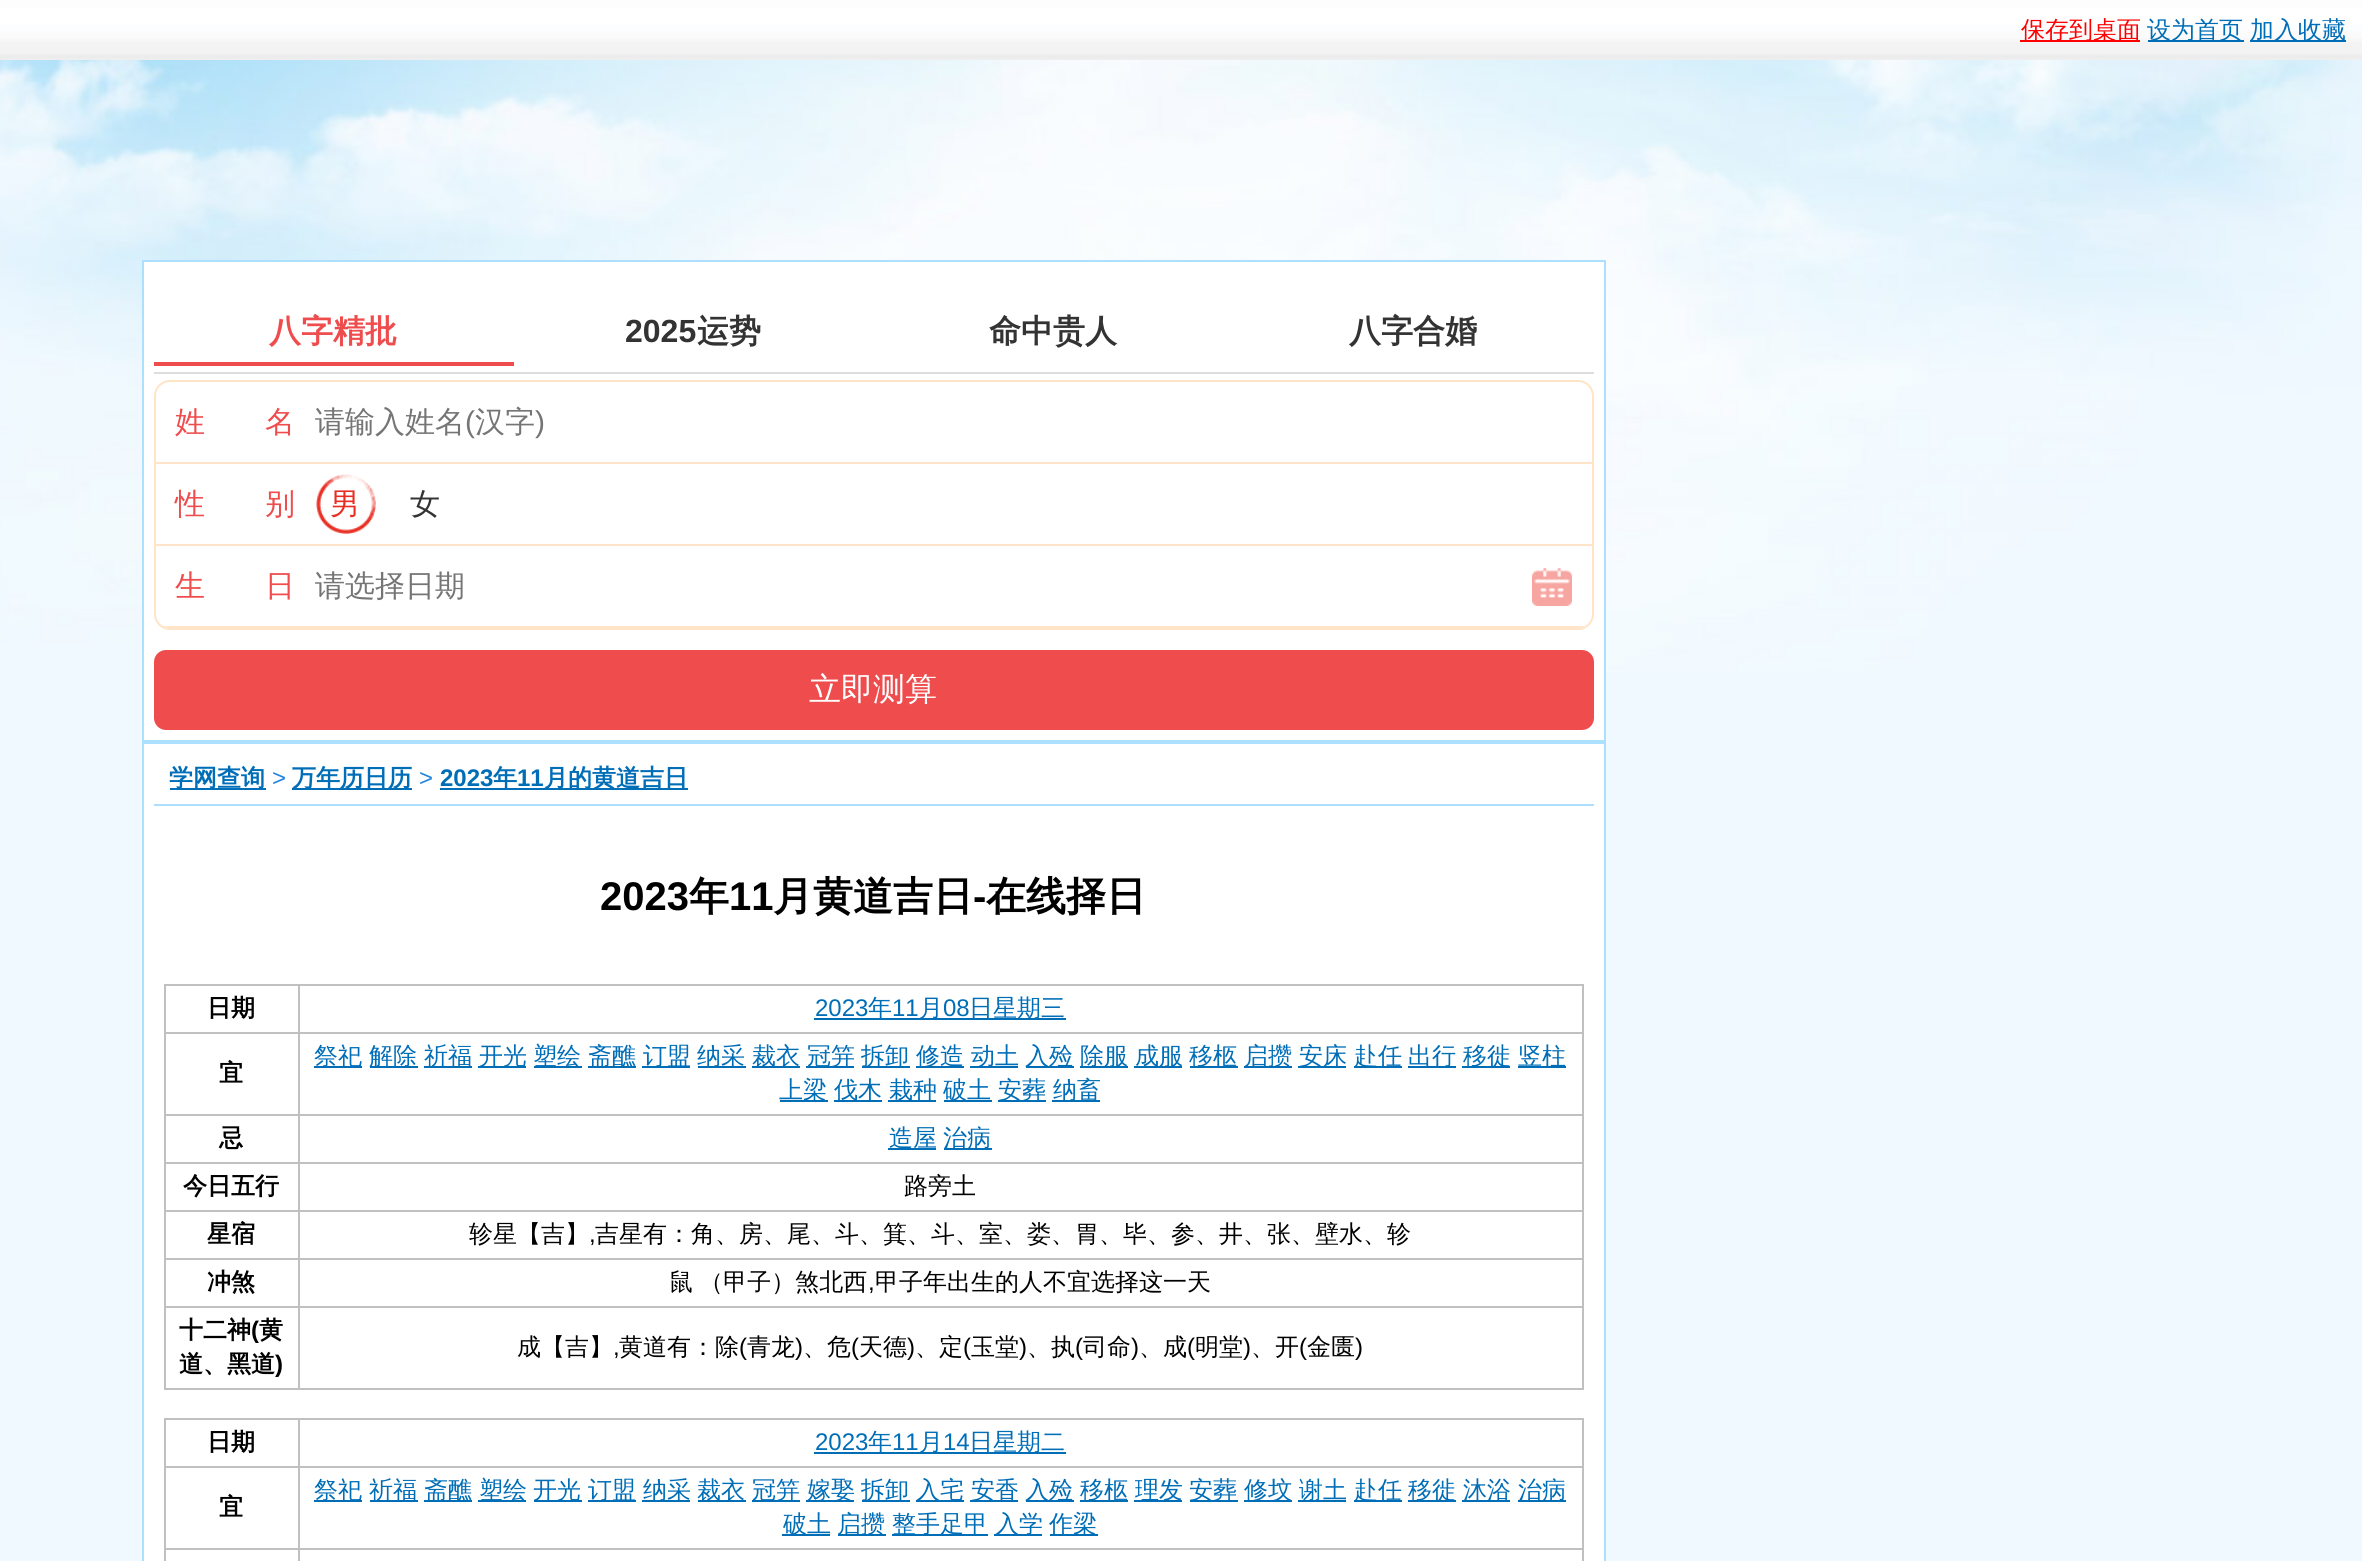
#include <cairo.h>
#include <math.h>
#include <stddef.h>

static cairo_t *ctx;

static void use_color(int r, int g, int b) {
    cairo_set_source_rgb(ctx, r / 255.0, g / 255.0, b / 255.0);
}

static void spaced_text(double x, double y, const char *s, double letter, double word) {
    cairo_move_to(ctx, x, y);
    while (*s) {
        char ch[5] = {0};
        int n = 0;
        do ch[n++] = *s++; while ((*s & 0xC0) == 0x80);
        cairo_show_text(ctx, ch);
        cairo_rel_move_to(ctx, letter + word * (*ch == ' '), 0);
    }
}

static void round_rect(double x, double y, double w, double h, double r) {
    cairo_new_sub_path(ctx);
    cairo_arc(ctx, x + w - r, y + h - r, r, 0, M_PI / 2);
    cairo_arc(ctx, x + r, y + h - r, r, M_PI / 2, M_PI);
    cairo_arc(ctx, x + r, y + r, r, M_PI, 1.5 * M_PI);
    cairo_arc(ctx, x + w - r, y + r, r, 1.5 * M_PI, 2 * M_PI);
    cairo_close_path(ctx);
}

static void picture(const char *path, double x, double y, double w, double h) {
    cairo_surface_t *image = cairo_image_surface_create_from_png(path);
    cairo_save(ctx);
    cairo_set_source_surface(ctx, image, x, y);
    cairo_rectangle(ctx, x, y, w, h);
    cairo_fill(ctx);
    cairo_restore(ctx);
    cairo_surface_destroy(image);
}

int main(void) {
    cairo_surface_t *surface = cairo_image_surface_create(CAIRO_FORMAT_RGB24, 2362, 1561);
    ctx = cairo_create(surface);
    cairo_font_options_t *options = cairo_font_options_create();
    cairo_font_options_set_hint_metrics(options, CAIRO_HINT_METRICS_OFF);
    cairo_font_options_set_hint_style(options, CAIRO_HINT_STYLE_NONE);
    cairo_set_font_options(ctx, options);
    cairo_set_miter_limit(ctx, 4);
    use_color(239, 249, 255);
    cairo_paint(ctx);
    picture("img1.png", 0, 60, 2362, 612);
    picture("img2.png", 0, 0, 2362, 60);
    use_color(255, 0, 0);
    cairo_rectangle(ctx, 2020, 40, 120, 2);
    cairo_fill(ctx);
    cairo_select_font_face(ctx, "WenQuanYi Zen Hei Medium", CAIRO_FONT_SLANT_NORMAL, CAIRO_FONT_WEIGHT_NORMAL);
    cairo_set_font_size(ctx, 24);
    cairo_move_to(ctx, 2021, 38);
    cairo_show_text(ctx, "保存到桌面");
    use_color(0, 109, 183);
    cairo_rectangle(ctx, 2148, 40, 96, 2);
    cairo_fill(ctx);
    cairo_move_to(ctx, 2147, 38);
    cairo_show_text(ctx, "设为首页");
    cairo_rectangle(ctx, 2250, 40, 96, 2);
    cairo_fill(ctx);
    cairo_move_to(ctx, 2250, 38);
    cairo_show_text(ctx, "加入收藏");
    use_color(255, 255, 255);
    cairo_rectangle(ctx, 143, 261, 1462, 480);
    cairo_fill_preserve(ctx);
    use_color(173, 223, 255);
    cairo_stroke(ctx);
    use_color(221, 221, 221);
    cairo_rectangle(ctx, 154, 372, 1440, 2);
    cairo_fill(ctx);
    use_color(239, 76, 77);
    cairo_rectangle(ctx, 154, 362, 360, 4);
    cairo_fill(ctx);
    cairo_select_font_face(ctx, "WenQuanYi Zen Hei", CAIRO_FONT_SLANT_NORMAL, CAIRO_FONT_WEIGHT_BOLD);
    cairo_set_font_size(ctx, 32);
    cairo_move_to(ctx, 269, 342);
    cairo_show_text(ctx, "八字精批");
    cairo_select_font_face(ctx, "Liberation Sans", CAIRO_FONT_SLANT_NORMAL, CAIRO_FONT_WEIGHT_BOLD);
    use_color(51, 51, 51);
    cairo_move_to(ctx, 625, 342);
    cairo_show_text(ctx, "2025");
    cairo_select_font_face(ctx, "WenQuanYi Zen Hei", CAIRO_FONT_SLANT_NORMAL, CAIRO_FONT_WEIGHT_BOLD);
    cairo_move_to(ctx, 697, 342);
    cairo_show_text(ctx, "运势");
    cairo_move_to(ctx, 989, 342);
    cairo_show_text(ctx, "命中贵人");
    cairo_move_to(ctx, 1349, 342);
    cairo_show_text(ctx, "八字合婚");
    round_rect(155, 381, 1438, 248, 15);
    use_color(255, 228, 200);
    cairo_stroke(ctx);
    cairo_rectangle(ctx, 156, 462, 1436, 2);
    cairo_fill(ctx);
    cairo_select_font_face(ctx, "WenQuanYi Zen Hei Medium", CAIRO_FONT_SLANT_NORMAL, CAIRO_FONT_WEIGHT_NORMAL);
    cairo_set_font_size(ctx, 30);
    use_color(239, 76, 77);
    cairo_move_to(ctx, 175, 432);
    cairo_show_text(ctx, "姓");
    cairo_move_to(ctx, 265, 432);
    cairo_show_text(ctx, "名");
    use_color(117, 117, 117);
    cairo_move_to(ctx, 315, 432);
    cairo_show_text(ctx, "请输入姓名");
    cairo_select_font_face(ctx, "Liberation Sans", CAIRO_FONT_SLANT_NORMAL, CAIRO_FONT_WEIGHT_NORMAL);
    cairo_move_to(ctx, 465, 432);
    cairo_show_text(ctx, "(");
    cairo_select_font_face(ctx, "WenQuanYi Zen Hei Medium", CAIRO_FONT_SLANT_NORMAL, CAIRO_FONT_WEIGHT_NORMAL);
    cairo_move_to(ctx, 475, 432);
    cairo_show_text(ctx, "汉字");
    cairo_select_font_face(ctx, "Liberation Sans", CAIRO_FONT_SLANT_NORMAL, CAIRO_FONT_WEIGHT_NORMAL);
    cairo_move_to(ctx, 535, 432);
    cairo_show_text(ctx, ")");
    use_color(255, 228, 200);
    cairo_rectangle(ctx, 156, 544, 1436, 2);
    cairo_fill(ctx);
    cairo_select_font_face(ctx, "WenQuanYi Zen Hei Medium", CAIRO_FONT_SLANT_NORMAL, CAIRO_FONT_WEIGHT_NORMAL);
    use_color(239, 76, 77);
    cairo_move_to(ctx, 175, 514);
    cairo_show_text(ctx, "性");
    cairo_move_to(ctx, 265, 514);
    cairo_show_text(ctx, "别");
    picture("img3.png", 316, 474, 60, 60);
    use_color(232, 46, 35);
    cairo_move_to(ctx, 330, 514);
    cairo_show_text(ctx, "男");
    use_color(51, 51, 51);
    cairo_move_to(ctx, 410, 514);
    cairo_show_text(ctx, "女");
    cairo_save(ctx);
    round_rect(156, 382, 1436, 246, 14);
    cairo_clip(ctx);
    use_color(255, 228, 200);
    cairo_rectangle(ctx, 156, 626, 1436, 2);
    cairo_fill(ctx);
    cairo_restore(ctx);
    use_color(239, 76, 77);
    cairo_move_to(ctx, 175, 596);
    cairo_show_text(ctx, "生");
    cairo_move_to(ctx, 265, 596);
    cairo_show_text(ctx, "日");
    picture("img4.png", 1532, 568, 40, 38);
    use_color(117, 117, 117);
    cairo_move_to(ctx, 315, 596);
    cairo_show_text(ctx, "请选择日期");
    use_color(239, 76, 77);
    round_rect(154, 650, 1440, 80, 12);
    cairo_fill(ctx);
    cairo_set_font_size(ctx, 32);
    use_color(255, 255, 255);
    cairo_move_to(ctx, 809, 700);
    cairo_show_text(ctx, "立即测算");
    cairo_rectangle(ctx, 143, 743, 1462, 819);
    cairo_fill_preserve(ctx);
    use_color(173, 223, 255);
    cairo_stroke(ctx);
    cairo_rectangle(ctx, 154, 804, 1440, 2);
    cairo_fill(ctx);
    use_color(0, 109, 183);
    cairo_rectangle(ctx, 170, 788, 96, 2);
    cairo_fill(ctx);
    cairo_select_font_face(ctx, "WenQuanYi Zen Hei", CAIRO_FONT_SLANT_NORMAL, CAIRO_FONT_WEIGHT_BOLD);
    cairo_set_font_size(ctx, 24);
    cairo_move_to(ctx, 169, 786);
    cairo_show_text(ctx, "学网查询");
    cairo_select_font_face(ctx, "Liberation Sans", CAIRO_FONT_SLANT_NORMAL, CAIRO_FONT_WEIGHT_NORMAL);
    use_color(34, 133, 225);
    cairo_move_to(ctx, 272, 786);
    cairo_show_text(ctx, ">");
    use_color(0, 109, 183);
    cairo_rectangle(ctx, 292, 788, 120, 2);
    cairo_fill(ctx);
    cairo_select_font_face(ctx, "WenQuanYi Zen Hei", CAIRO_FONT_SLANT_NORMAL, CAIRO_FONT_WEIGHT_BOLD);
    cairo_move_to(ctx, 292, 786);
    cairo_show_text(ctx, "万年历日历");
    cairo_select_font_face(ctx, "Liberation Sans", CAIRO_FONT_SLANT_NORMAL, CAIRO_FONT_WEIGHT_NORMAL);
    use_color(34, 133, 225);
    cairo_move_to(ctx, 419, 786);
    cairo_show_text(ctx, ">");
    cairo_select_font_face(ctx, "Liberation Sans", CAIRO_FONT_SLANT_NORMAL, CAIRO_FONT_WEIGHT_BOLD);
    use_color(0, 109, 183);
    cairo_move_to(ctx, 440, 786);
    cairo_show_text(ctx, "2023");
    cairo_rectangle(ctx, 440, 788, 248, 2);
    cairo_fill(ctx);
    cairo_select_font_face(ctx, "WenQuanYi Zen Hei", CAIRO_FONT_SLANT_NORMAL, CAIRO_FONT_WEIGHT_BOLD);
    cairo_move_to(ctx, 493, 786);
    cairo_show_text(ctx, "年");
    cairo_select_font_face(ctx, "Liberation Sans", CAIRO_FONT_SLANT_NORMAL, CAIRO_FONT_WEIGHT_BOLD);
    cairo_move_to(ctx, 517, 786);
    cairo_show_text(ctx, "11");
    cairo_select_font_face(ctx, "WenQuanYi Zen Hei", CAIRO_FONT_SLANT_NORMAL, CAIRO_FONT_WEIGHT_BOLD);
    cairo_move_to(ctx, 544, 786);
    cairo_show_text(ctx, "月的黄道吉日");
    cairo_select_font_face(ctx, "Liberation Sans", CAIRO_FONT_SLANT_NORMAL, CAIRO_FONT_WEIGHT_BOLD);
    cairo_set_font_size(ctx, 40);
    use_color(0, 0, 0);
    cairo_move_to(ctx, 600, 910);
    cairo_show_text(ctx, "2023");
    cairo_select_font_face(ctx, "WenQuanYi Zen Hei", CAIRO_FONT_SLANT_NORMAL, CAIRO_FONT_WEIGHT_BOLD);
    cairo_move_to(ctx, 689, 910);
    cairo_show_text(ctx, "年");
    cairo_select_font_face(ctx, "Liberation Sans", CAIRO_FONT_SLANT_NORMAL, CAIRO_FONT_WEIGHT_BOLD);
    cairo_move_to(ctx, 729, 910);
    cairo_show_text(ctx, "11");
    cairo_select_font_face(ctx, "WenQuanYi Zen Hei", CAIRO_FONT_SLANT_NORMAL, CAIRO_FONT_WEIGHT_BOLD);
    cairo_move_to(ctx, 773, 910);
    cairo_show_text(ctx, "月黄道吉日");
    cairo_select_font_face(ctx, "Liberation Sans", CAIRO_FONT_SLANT_NORMAL, CAIRO_FONT_WEIGHT_BOLD);
    cairo_move_to(ctx, 973, 910);
    cairo_show_text(ctx, "-");
    cairo_select_font_face(ctx, "WenQuanYi Zen Hei", CAIRO_FONT_SLANT_NORMAL, CAIRO_FONT_WEIGHT_BOLD);
    cairo_move_to(ctx, 986, 910);
    cairo_show_text(ctx, "在线择日");
    use_color(192, 192, 192);
    cairo_rectangle(ctx, 164, 984, 1420, 2);
    cairo_fill(ctx);
    cairo_rectangle(ctx, 1582, 984, 2, 406);
    cairo_fill(ctx);
    cairo_rectangle(ctx, 164, 1388, 1420, 2);
    cairo_fill(ctx);
    cairo_rectangle(ctx, 164, 984, 2, 406);
    cairo_fill(ctx);
    cairo_set_font_size(ctx, 24);
    use_color(0, 0, 0);
    cairo_move_to(ctx, 207, 1016);
    cairo_show_text(ctx, "日期");
    use_color(192, 192, 192);
    cairo_rectangle(ctx, 298, 1032, 1286, 2);
    cairo_fill(ctx);
    cairo_rectangle(ctx, 298, 1114, 1286, 2);
    cairo_fill(ctx);
    cairo_rectangle(ctx, 298, 1162, 1286, 2);
    cairo_fill(ctx);
    cairo_rectangle(ctx, 298, 1210, 1286, 2);
    cairo_fill(ctx);
    cairo_rectangle(ctx, 298, 1258, 1286, 2);
    cairo_fill(ctx);
    cairo_rectangle(ctx, 298, 1306, 1286, 2);
    cairo_fill(ctx);
    cairo_rectangle(ctx, 298, 1306, 2, 84);
    cairo_fill(ctx);
    cairo_rectangle(ctx, 164, 1306, 136, 2);
    cairo_fill(ctx);
    cairo_rectangle(ctx, 298, 1258, 2, 50);
    cairo_fill(ctx);
    cairo_rectangle(ctx, 164, 1258, 136, 2);
    cairo_fill(ctx);
    cairo_rectangle(ctx, 298, 1210, 2, 50);
    cairo_fill(ctx);
    cairo_rectangle(ctx, 164, 1210, 136, 2);
    cairo_fill(ctx);
    cairo_rectangle(ctx, 298, 1162, 2, 50);
    cairo_fill(ctx);
    cairo_rectangle(ctx, 164, 1162, 136, 2);
    cairo_fill(ctx);
    cairo_rectangle(ctx, 298, 1114, 2, 50);
    cairo_fill(ctx);
    cairo_rectangle(ctx, 164, 1114, 136, 2);
    cairo_fill(ctx);
    cairo_rectangle(ctx, 298, 1032, 2, 84);
    cairo_fill(ctx);
    cairo_rectangle(ctx, 164, 1032, 136, 2);
    cairo_fill(ctx);
    cairo_rectangle(ctx, 298, 984, 2, 50);
    cairo_fill(ctx);
    cairo_select_font_face(ctx, "Liberation Sans", CAIRO_FONT_SLANT_NORMAL, CAIRO_FONT_WEIGHT_NORMAL);
    use_color(0, 109, 183);
    cairo_move_to(ctx, 815, 1016);
    cairo_show_text(ctx, "2023");
    cairo_rectangle(ctx, 814, 1018, 252, 2);
    cairo_fill(ctx);
    cairo_select_font_face(ctx, "WenQuanYi Zen Hei Medium", CAIRO_FONT_SLANT_NORMAL, CAIRO_FONT_WEIGHT_NORMAL);
    cairo_move_to(ctx, 868, 1016);
    cairo_show_text(ctx, "年");
    cairo_select_font_face(ctx, "Liberation Sans", CAIRO_FONT_SLANT_NORMAL, CAIRO_FONT_WEIGHT_NORMAL);
    cairo_move_to(ctx, 892, 1016);
    cairo_show_text(ctx, "11");
    cairo_select_font_face(ctx, "WenQuanYi Zen Hei Medium", CAIRO_FONT_SLANT_NORMAL, CAIRO_FONT_WEIGHT_NORMAL);
    cairo_move_to(ctx, 919, 1016);
    cairo_show_text(ctx, "月");
    cairo_select_font_face(ctx, "Liberation Sans", CAIRO_FONT_SLANT_NORMAL, CAIRO_FONT_WEIGHT_NORMAL);
    cairo_move_to(ctx, 943, 1016);
    cairo_show_text(ctx, "08");
    cairo_select_font_face(ctx, "WenQuanYi Zen Hei Medium", CAIRO_FONT_SLANT_NORMAL, CAIRO_FONT_WEIGHT_NORMAL);
    cairo_move_to(ctx, 969, 1016);
    cairo_show_text(ctx, "日星期三");
    cairo_select_font_face(ctx, "WenQuanYi Zen Hei", CAIRO_FONT_SLANT_NORMAL, CAIRO_FONT_WEIGHT_BOLD);
    use_color(0, 0, 0);
    cairo_move_to(ctx, 219, 1081);
    cairo_show_text(ctx, "宜");
    use_color(0, 109, 183);
    cairo_rectangle(ctx, 314, 1066, 48, 2);
    cairo_fill(ctx);
    cairo_select_font_face(ctx, "WenQuanYi Zen Hei Medium", CAIRO_FONT_SLANT_NORMAL, CAIRO_FONT_WEIGHT_NORMAL);
    cairo_move_to(ctx, 314, 1064);
    cairo_show_text(ctx, "祭祀");
    cairo_rectangle(ctx, 370, 1066, 48, 2);
    cairo_fill(ctx);
    cairo_move_to(ctx, 369, 1064);
    cairo_show_text(ctx, "解除");
    cairo_rectangle(ctx, 424, 1066, 48, 2);
    cairo_fill(ctx);
    cairo_move_to(ctx, 424, 1064);
    cairo_show_text(ctx, "祈福");
    cairo_rectangle(ctx, 478, 1066, 48, 2);
    cairo_fill(ctx);
    cairo_move_to(ctx, 479, 1064);
    cairo_show_text(ctx, "开光");
    cairo_rectangle(ctx, 534, 1066, 48, 2);
    cairo_fill(ctx);
    cairo_move_to(ctx, 533, 1064);
    cairo_show_text(ctx, "塑绘");
    cairo_rectangle(ctx, 588, 1066, 48, 2);
    cairo_fill(ctx);
    cairo_move_to(ctx, 588, 1064);
    cairo_show_text(ctx, "斋醮");
    cairo_rectangle(ctx, 642, 1066, 48, 2);
    cairo_fill(ctx);
    cairo_move_to(ctx, 643, 1064);
    cairo_show_text(ctx, "订盟");
    cairo_rectangle(ctx, 698, 1066, 48, 2);
    cairo_fill(ctx);
    cairo_move_to(ctx, 697, 1064);
    cairo_show_text(ctx, "纳采");
    cairo_rectangle(ctx, 752, 1066, 48, 2);
    cairo_fill(ctx);
    cairo_move_to(ctx, 752, 1064);
    cairo_show_text(ctx, "裁衣");
    cairo_rectangle(ctx, 806, 1066, 48, 2);
    cairo_fill(ctx);
    cairo_move_to(ctx, 807, 1064);
    cairo_show_text(ctx, "冠笄");
    cairo_rectangle(ctx, 862, 1066, 48, 2);
    cairo_fill(ctx);
    cairo_move_to(ctx, 861, 1064);
    cairo_show_text(ctx, "拆卸");
    cairo_rectangle(ctx, 916, 1066, 48, 2);
    cairo_fill(ctx);
    cairo_move_to(ctx, 916, 1064);
    cairo_show_text(ctx, "修造");
    cairo_rectangle(ctx, 970, 1066, 48, 2);
    cairo_fill(ctx);
    cairo_move_to(ctx, 971, 1064);
    cairo_show_text(ctx, "动土");
    cairo_rectangle(ctx, 1026, 1066, 48, 2);
    cairo_fill(ctx);
    cairo_move_to(ctx, 1025, 1064);
    cairo_show_text(ctx, "入殓");
    cairo_rectangle(ctx, 1080, 1066, 48, 2);
    cairo_fill(ctx);
    cairo_move_to(ctx, 1080, 1064);
    cairo_show_text(ctx, "除服");
    cairo_rectangle(ctx, 1134, 1066, 48, 2);
    cairo_fill(ctx);
    cairo_move_to(ctx, 1135, 1064);
    cairo_show_text(ctx, "成服");
    cairo_rectangle(ctx, 1190, 1066, 48, 2);
    cairo_fill(ctx);
    cairo_move_to(ctx, 1189, 1064);
    cairo_show_text(ctx, "移柩");
    cairo_rectangle(ctx, 1244, 1066, 48, 2);
    cairo_fill(ctx);
    cairo_move_to(ctx, 1244, 1064);
    cairo_show_text(ctx, "启攒");
    cairo_rectangle(ctx, 1298, 1066, 48, 2);
    cairo_fill(ctx);
    cairo_move_to(ctx, 1299, 1064);
    cairo_show_text(ctx, "安床");
    cairo_rectangle(ctx, 1354, 1066, 48, 2);
    cairo_fill(ctx);
    cairo_move_to(ctx, 1354, 1064);
    cairo_show_text(ctx, "赴任");
    cairo_rectangle(ctx, 1408, 1066, 48, 2);
    cairo_fill(ctx);
    cairo_move_to(ctx, 1408, 1064);
    cairo_show_text(ctx, "出行");
    cairo_rectangle(ctx, 1462, 1066, 48, 2);
    cairo_fill(ctx);
    cairo_move_to(ctx, 1463, 1064);
    cairo_show_text(ctx, "移徙");
    cairo_rectangle(ctx, 1518, 1066, 48, 2);
    cairo_fill(ctx);
    cairo_move_to(ctx, 1518, 1064);
    cairo_show_text(ctx, "竖柱");
    cairo_rectangle(ctx, 780, 1100, 48, 2);
    cairo_fill(ctx);
    cairo_move_to(ctx, 779, 1098);
    cairo_show_text(ctx, "上梁");
    cairo_rectangle(ctx, 834, 1100, 48, 2);
    cairo_fill(ctx);
    cairo_move_to(ctx, 834, 1098);
    cairo_show_text(ctx, "伐木");
    cairo_rectangle(ctx, 888, 1100, 48, 2);
    cairo_fill(ctx);
    cairo_move_to(ctx, 889, 1098);
    cairo_show_text(ctx, "栽种");
    cairo_rectangle(ctx, 944, 1100, 48, 2);
    cairo_fill(ctx);
    cairo_move_to(ctx, 943, 1098);
    cairo_show_text(ctx, "破土");
    cairo_rectangle(ctx, 998, 1100, 48, 2);
    cairo_fill(ctx);
    cairo_move_to(ctx, 998, 1098);
    cairo_show_text(ctx, "安葬");
    cairo_rectangle(ctx, 1052, 1100, 48, 2);
    cairo_fill(ctx);
    cairo_move_to(ctx, 1053, 1098);
    cairo_show_text(ctx, "纳畜");
    cairo_select_font_face(ctx, "WenQuanYi Zen Hei", CAIRO_FONT_SLANT_NORMAL, CAIRO_FONT_WEIGHT_BOLD);
    use_color(0, 0, 0);
    cairo_move_to(ctx, 219, 1146);
    cairo_show_text(ctx, "忌");
    use_color(0, 109, 183);
    cairo_rectangle(ctx, 888, 1148, 48, 2);
    cairo_fill(ctx);
    cairo_select_font_face(ctx, "WenQuanYi Zen Hei Medium", CAIRO_FONT_SLANT_NORMAL, CAIRO_FONT_WEIGHT_NORMAL);
    cairo_move_to(ctx, 889, 1146);
    cairo_show_text(ctx, "造屋");
    cairo_rectangle(ctx, 944, 1148, 48, 2);
    cairo_fill(ctx);
    cairo_move_to(ctx, 943, 1146);
    cairo_show_text(ctx, "治病");
    cairo_select_font_face(ctx, "WenQuanYi Zen Hei", CAIRO_FONT_SLANT_NORMAL, CAIRO_FONT_WEIGHT_BOLD);
    use_color(0, 0, 0);
    cairo_move_to(ctx, 183, 1194);
    cairo_show_text(ctx, "今日五行");
    cairo_select_font_face(ctx, "WenQuanYi Zen Hei Medium", CAIRO_FONT_SLANT_NORMAL, CAIRO_FONT_WEIGHT_NORMAL);
    cairo_move_to(ctx, 904, 1194);
    cairo_show_text(ctx, "路旁土");
    cairo_select_font_face(ctx, "WenQuanYi Zen Hei", CAIRO_FONT_SLANT_NORMAL, CAIRO_FONT_WEIGHT_BOLD);
    cairo_move_to(ctx, 207, 1242);
    cairo_show_text(ctx, "星宿");
    cairo_select_font_face(ctx, "WenQuanYi Zen Hei Medium", CAIRO_FONT_SLANT_NORMAL, CAIRO_FONT_WEIGHT_NORMAL);
    cairo_move_to(ctx, 469, 1242);
    cairo_show_text(ctx, "轸星【吉】");
    cairo_select_font_face(ctx, "Liberation Sans", CAIRO_FONT_SLANT_NORMAL, CAIRO_FONT_WEIGHT_NORMAL);
    cairo_move_to(ctx, 589, 1242);
    cairo_show_text(ctx, ",");
    cairo_select_font_face(ctx, "WenQuanYi Zen Hei Medium", CAIRO_FONT_SLANT_NORMAL, CAIRO_FONT_WEIGHT_NORMAL);
    cairo_move_to(ctx, 595, 1242);
    cairo_show_text(ctx, "吉星有：角、房、尾、斗、箕、斗、室、娄、胃、毕、参、井、张、壁水、轸");
    cairo_select_font_face(ctx, "WenQuanYi Zen Hei", CAIRO_FONT_SLANT_NORMAL, CAIRO_FONT_WEIGHT_BOLD);
    cairo_move_to(ctx, 207, 1290);
    cairo_show_text(ctx, "冲煞");
    cairo_select_font_face(ctx, "WenQuanYi Zen Hei Medium", CAIRO_FONT_SLANT_NORMAL, CAIRO_FONT_WEIGHT_NORMAL);
    spaced_text(669, 1290, "鼠 （甲子）煞北西", 0, -1);
    cairo_select_font_face(ctx, "Liberation Sans", CAIRO_FONT_SLANT_NORMAL, CAIRO_FONT_WEIGHT_NORMAL);
    cairo_move_to(ctx, 868, 1290);
    cairo_show_text(ctx, ",");
    cairo_select_font_face(ctx, "WenQuanYi Zen Hei Medium", CAIRO_FONT_SLANT_NORMAL, CAIRO_FONT_WEIGHT_NORMAL);
    cairo_move_to(ctx, 875, 1290);
    cairo_show_text(ctx, "甲子年出生的人不宜选择这一天");
    cairo_select_font_face(ctx, "WenQuanYi Zen Hei", CAIRO_FONT_SLANT_NORMAL, CAIRO_FONT_WEIGHT_BOLD);
    cairo_move_to(ctx, 179, 1338);
    cairo_show_text(ctx, "十二神");
    cairo_select_font_face(ctx, "Liberation Sans", CAIRO_FONT_SLANT_NORMAL, CAIRO_FONT_WEIGHT_BOLD);
    cairo_move_to(ctx, 251, 1338);
    cairo_show_text(ctx, "(");
    cairo_select_font_face(ctx, "WenQuanYi Zen Hei", CAIRO_FONT_SLANT_NORMAL, CAIRO_FONT_WEIGHT_BOLD);
    cairo_move_to(ctx, 259, 1338);
    cairo_show_text(ctx, "黄");
    cairo_move_to(ctx, 179, 1372);
    cairo_show_text(ctx, "道、黑道");
    cairo_select_font_face(ctx, "Liberation Sans", CAIRO_FONT_SLANT_NORMAL, CAIRO_FONT_WEIGHT_BOLD);
    cairo_move_to(ctx, 275, 1372);
    cairo_show_text(ctx, ")");
    cairo_select_font_face(ctx, "WenQuanYi Zen Hei Medium", CAIRO_FONT_SLANT_NORMAL, CAIRO_FONT_WEIGHT_NORMAL);
    cairo_move_to(ctx, 517, 1355);
    cairo_show_text(ctx, "成【吉】");
    cairo_select_font_face(ctx, "Liberation Sans", CAIRO_FONT_SLANT_NORMAL, CAIRO_FONT_WEIGHT_NORMAL);
    cairo_move_to(ctx, 613, 1355);
    cairo_show_text(ctx, ",");
    cairo_select_font_face(ctx, "WenQuanYi Zen Hei Medium", CAIRO_FONT_SLANT_NORMAL, CAIRO_FONT_WEIGHT_NORMAL);
    cairo_move_to(ctx, 619, 1355);
    cairo_show_text(ctx, "黄道有：除");
    cairo_select_font_face(ctx, "Liberation Sans", CAIRO_FONT_SLANT_NORMAL, CAIRO_FONT_WEIGHT_NORMAL);
    cairo_move_to(ctx, 739, 1355);
    cairo_show_text(ctx, "(");
    cairo_select_font_face(ctx, "WenQuanYi Zen Hei Medium", CAIRO_FONT_SLANT_NORMAL, CAIRO_FONT_WEIGHT_NORMAL);
    cairo_move_to(ctx, 747, 1355);
    cairo_show_text(ctx, "青龙");
    cairo_select_font_face(ctx, "Liberation Sans", CAIRO_FONT_SLANT_NORMAL, CAIRO_FONT_WEIGHT_NORMAL);
    cairo_move_to(ctx, 795, 1355);
    cairo_show_text(ctx, ")");
    cairo_select_font_face(ctx, "WenQuanYi Zen Hei Medium", CAIRO_FONT_SLANT_NORMAL, CAIRO_FONT_WEIGHT_NORMAL);
    cairo_move_to(ctx, 803, 1355);
    cairo_show_text(ctx, "、危");
    cairo_select_font_face(ctx, "Liberation Sans", CAIRO_FONT_SLANT_NORMAL, CAIRO_FONT_WEIGHT_NORMAL);
    cairo_move_to(ctx, 851, 1355);
    cairo_show_text(ctx, "(");
    cairo_select_font_face(ctx, "WenQuanYi Zen Hei Medium", CAIRO_FONT_SLANT_NORMAL, CAIRO_FONT_WEIGHT_NORMAL);
    cairo_move_to(ctx, 859, 1355);
    cairo_show_text(ctx, "天德");
    cairo_select_font_face(ctx, "Liberation Sans", CAIRO_FONT_SLANT_NORMAL, CAIRO_FONT_WEIGHT_NORMAL);
    cairo_move_to(ctx, 907, 1355);
    cairo_show_text(ctx, ")");
    cairo_select_font_face(ctx, "WenQuanYi Zen Hei Medium", CAIRO_FONT_SLANT_NORMAL, CAIRO_FONT_WEIGHT_NORMAL);
    cairo_move_to(ctx, 915, 1355);
    cairo_show_text(ctx, "、定");
    cairo_select_font_face(ctx, "Liberation Sans", CAIRO_FONT_SLANT_NORMAL, CAIRO_FONT_WEIGHT_NORMAL);
    cairo_move_to(ctx, 963, 1355);
    cairo_show_text(ctx, "(");
    cairo_select_font_face(ctx, "WenQuanYi Zen Hei Medium", CAIRO_FONT_SLANT_NORMAL, CAIRO_FONT_WEIGHT_NORMAL);
    cairo_move_to(ctx, 971, 1355);
    cairo_show_text(ctx, "玉堂");
    cairo_select_font_face(ctx, "Liberation Sans", CAIRO_FONT_SLANT_NORMAL, CAIRO_FONT_WEIGHT_NORMAL);
    cairo_move_to(ctx, 1019, 1355);
    cairo_show_text(ctx, ")");
    cairo_select_font_face(ctx, "WenQuanYi Zen Hei Medium", CAIRO_FONT_SLANT_NORMAL, CAIRO_FONT_WEIGHT_NORMAL);
    cairo_move_to(ctx, 1027, 1355);
    cairo_show_text(ctx, "、执");
    cairo_select_font_face(ctx, "Liberation Sans", CAIRO_FONT_SLANT_NORMAL, CAIRO_FONT_WEIGHT_NORMAL);
    cairo_move_to(ctx, 1075, 1355);
    cairo_show_text(ctx, "(");
    cairo_select_font_face(ctx, "WenQuanYi Zen Hei Medium", CAIRO_FONT_SLANT_NORMAL, CAIRO_FONT_WEIGHT_NORMAL);
    cairo_move_to(ctx, 1083, 1355);
    cairo_show_text(ctx, "司命");
    cairo_select_font_face(ctx, "Liberation Sans", CAIRO_FONT_SLANT_NORMAL, CAIRO_FONT_WEIGHT_NORMAL);
    cairo_move_to(ctx, 1131, 1355);
    cairo_show_text(ctx, ")");
    cairo_select_font_face(ctx, "WenQuanYi Zen Hei Medium", CAIRO_FONT_SLANT_NORMAL, CAIRO_FONT_WEIGHT_NORMAL);
    cairo_move_to(ctx, 1139, 1355);
    cairo_show_text(ctx, "、成");
    cairo_select_font_face(ctx, "Liberation Sans", CAIRO_FONT_SLANT_NORMAL, CAIRO_FONT_WEIGHT_NORMAL);
    cairo_move_to(ctx, 1187, 1355);
    cairo_show_text(ctx, "(");
    cairo_select_font_face(ctx, "WenQuanYi Zen Hei Medium", CAIRO_FONT_SLANT_NORMAL, CAIRO_FONT_WEIGHT_NORMAL);
    cairo_move_to(ctx, 1195, 1355);
    cairo_show_text(ctx, "明堂");
    cairo_select_font_face(ctx, "Liberation Sans", CAIRO_FONT_SLANT_NORMAL, CAIRO_FONT_WEIGHT_NORMAL);
    cairo_move_to(ctx, 1243, 1355);
    cairo_show_text(ctx, ")");
    cairo_select_font_face(ctx, "WenQuanYi Zen Hei Medium", CAIRO_FONT_SLANT_NORMAL, CAIRO_FONT_WEIGHT_NORMAL);
    cairo_move_to(ctx, 1251, 1355);
    cairo_show_text(ctx, "、开");
    cairo_select_font_face(ctx, "Liberation Sans", CAIRO_FONT_SLANT_NORMAL, CAIRO_FONT_WEIGHT_NORMAL);
    cairo_move_to(ctx, 1299, 1355);
    cairo_show_text(ctx, "(");
    cairo_select_font_face(ctx, "WenQuanYi Zen Hei Medium", CAIRO_FONT_SLANT_NORMAL, CAIRO_FONT_WEIGHT_NORMAL);
    cairo_move_to(ctx, 1307, 1355);
    cairo_show_text(ctx, "金匮");
    cairo_select_font_face(ctx, "Liberation Sans", CAIRO_FONT_SLANT_NORMAL, CAIRO_FONT_WEIGHT_NORMAL);
    cairo_move_to(ctx, 1355, 1355);
    cairo_show_text(ctx, ")");
    use_color(192, 192, 192);
    cairo_rectangle(ctx, 164, 1418, 1420, 2);
    cairo_fill(ctx);
    cairo_rectangle(ctx, 1582, 1418, 2, 143);
    cairo_fill(ctx);
    cairo_rectangle(ctx, 164, 1418, 2, 143);
    cairo_fill(ctx);
    cairo_select_font_face(ctx, "WenQuanYi Zen Hei", CAIRO_FONT_SLANT_NORMAL, CAIRO_FONT_WEIGHT_BOLD);
    use_color(0, 0, 0);
    cairo_move_to(ctx, 207, 1450);
    cairo_show_text(ctx, "日期");
    use_color(192, 192, 192);
    cairo_rectangle(ctx, 298, 1466, 1286, 2);
    cairo_fill(ctx);
    cairo_rectangle(ctx, 298, 1548, 1286, 2);
    cairo_fill(ctx);
    cairo_rectangle(ctx, 298, 1548, 2, 13);
    cairo_fill(ctx);
    cairo_rectangle(ctx, 164, 1548, 136, 2);
    cairo_fill(ctx);
    cairo_rectangle(ctx, 298, 1466, 2, 84);
    cairo_fill(ctx);
    cairo_rectangle(ctx, 164, 1466, 136, 2);
    cairo_fill(ctx);
    cairo_rectangle(ctx, 298, 1418, 2, 50);
    cairo_fill(ctx);
    cairo_select_font_face(ctx, "Liberation Sans", CAIRO_FONT_SLANT_NORMAL, CAIRO_FONT_WEIGHT_NORMAL);
    use_color(0, 109, 183);
    cairo_move_to(ctx, 815, 1450);
    cairo_show_text(ctx, "2023");
    cairo_rectangle(ctx, 814, 1452, 252, 2);
    cairo_fill(ctx);
    cairo_select_font_face(ctx, "WenQuanYi Zen Hei Medium", CAIRO_FONT_SLANT_NORMAL, CAIRO_FONT_WEIGHT_NORMAL);
    cairo_move_to(ctx, 868, 1450);
    cairo_show_text(ctx, "年");
    cairo_select_font_face(ctx, "Liberation Sans", CAIRO_FONT_SLANT_NORMAL, CAIRO_FONT_WEIGHT_NORMAL);
    cairo_move_to(ctx, 892, 1450);
    cairo_show_text(ctx, "11");
    cairo_select_font_face(ctx, "WenQuanYi Zen Hei Medium", CAIRO_FONT_SLANT_NORMAL, CAIRO_FONT_WEIGHT_NORMAL);
    cairo_move_to(ctx, 919, 1450);
    cairo_show_text(ctx, "月");
    cairo_select_font_face(ctx, "Liberation Sans", CAIRO_FONT_SLANT_NORMAL, CAIRO_FONT_WEIGHT_NORMAL);
    cairo_move_to(ctx, 943, 1450);
    cairo_show_text(ctx, "14");
    cairo_select_font_face(ctx, "WenQuanYi Zen Hei Medium", CAIRO_FONT_SLANT_NORMAL, CAIRO_FONT_WEIGHT_NORMAL);
    cairo_move_to(ctx, 969, 1450);
    cairo_show_text(ctx, "日星期二");
    cairo_select_font_face(ctx, "WenQuanYi Zen Hei", CAIRO_FONT_SLANT_NORMAL, CAIRO_FONT_WEIGHT_BOLD);
    use_color(0, 0, 0);
    cairo_move_to(ctx, 219, 1515);
    cairo_show_text(ctx, "宜");
    use_color(0, 109, 183);
    cairo_rectangle(ctx, 314, 1500, 48, 2);
    cairo_fill(ctx);
    cairo_select_font_face(ctx, "WenQuanYi Zen Hei Medium", CAIRO_FONT_SLANT_NORMAL, CAIRO_FONT_WEIGHT_NORMAL);
    cairo_move_to(ctx, 314, 1498);
    cairo_show_text(ctx, "祭祀");
    cairo_rectangle(ctx, 370, 1500, 48, 2);
    cairo_fill(ctx);
    cairo_move_to(ctx, 369, 1498);
    cairo_show_text(ctx, "祈福");
    cairo_rectangle(ctx, 424, 1500, 48, 2);
    cairo_fill(ctx);
    cairo_move_to(ctx, 424, 1498);
    cairo_show_text(ctx, "斋醮");
    cairo_rectangle(ctx, 478, 1500, 48, 2);
    cairo_fill(ctx);
    cairo_move_to(ctx, 479, 1498);
    cairo_show_text(ctx, "塑绘");
    cairo_rectangle(ctx, 534, 1500, 48, 2);
    cairo_fill(ctx);
    cairo_move_to(ctx, 533, 1498);
    cairo_show_text(ctx, "开光");
    cairo_rectangle(ctx, 588, 1500, 48, 2);
    cairo_fill(ctx);
    cairo_move_to(ctx, 588, 1498);
    cairo_show_text(ctx, "订盟");
    cairo_rectangle(ctx, 642, 1500, 48, 2);
    cairo_fill(ctx);
    cairo_move_to(ctx, 643, 1498);
    cairo_show_text(ctx, "纳采");
    cairo_rectangle(ctx, 698, 1500, 48, 2);
    cairo_fill(ctx);
    cairo_move_to(ctx, 697, 1498);
    cairo_show_text(ctx, "裁衣");
    cairo_rectangle(ctx, 752, 1500, 48, 2);
    cairo_fill(ctx);
    cairo_move_to(ctx, 752, 1498);
    cairo_show_text(ctx, "冠笄");
    cairo_rectangle(ctx, 806, 1500, 48, 2);
    cairo_fill(ctx);
    cairo_move_to(ctx, 807, 1498);
    cairo_show_text(ctx, "嫁娶");
    cairo_rectangle(ctx, 862, 1500, 48, 2);
    cairo_fill(ctx);
    cairo_move_to(ctx, 861, 1498);
    cairo_show_text(ctx, "拆卸");
    cairo_rectangle(ctx, 916, 1500, 48, 2);
    cairo_fill(ctx);
    cairo_move_to(ctx, 916, 1498);
    cairo_show_text(ctx, "入宅");
    cairo_rectangle(ctx, 970, 1500, 48, 2);
    cairo_fill(ctx);
    cairo_move_to(ctx, 971, 1498);
    cairo_show_text(ctx, "安香");
    cairo_rectangle(ctx, 1026, 1500, 48, 2);
    cairo_fill(ctx);
    cairo_move_to(ctx, 1025, 1498);
    cairo_show_text(ctx, "入殓");
    cairo_rectangle(ctx, 1080, 1500, 48, 2);
    cairo_fill(ctx);
    cairo_move_to(ctx, 1080, 1498);
    cairo_show_text(ctx, "移柩");
    cairo_rectangle(ctx, 1134, 1500, 48, 2);
    cairo_fill(ctx);
    cairo_move_to(ctx, 1135, 1498);
    cairo_show_text(ctx, "理发");
    cairo_rectangle(ctx, 1190, 1500, 48, 2);
    cairo_fill(ctx);
    cairo_move_to(ctx, 1189, 1498);
    cairo_show_text(ctx, "安葬");
    cairo_rectangle(ctx, 1244, 1500, 48, 2);
    cairo_fill(ctx);
    cairo_move_to(ctx, 1244, 1498);
    cairo_show_text(ctx, "修坟");
    cairo_rectangle(ctx, 1298, 1500, 48, 2);
    cairo_fill(ctx);
    cairo_move_to(ctx, 1299, 1498);
    cairo_show_text(ctx, "谢土");
    cairo_rectangle(ctx, 1354, 1500, 48, 2);
    cairo_fill(ctx);
    cairo_move_to(ctx, 1354, 1498);
    cairo_show_text(ctx, "赴任");
    cairo_rectangle(ctx, 1408, 1500, 48, 2);
    cairo_fill(ctx);
    cairo_move_to(ctx, 1408, 1498);
    cairo_show_text(ctx, "移徙");
    cairo_rectangle(ctx, 1462, 1500, 48, 2);
    cairo_fill(ctx);
    cairo_move_to(ctx, 1463, 1498);
    cairo_show_text(ctx, "沐浴");
    cairo_rectangle(ctx, 1518, 1500, 48, 2);
    cairo_fill(ctx);
    cairo_move_to(ctx, 1518, 1498);
    cairo_show_text(ctx, "治病");
    cairo_rectangle(ctx, 782, 1534, 48, 2);
    cairo_fill(ctx);
    cairo_move_to(ctx, 783, 1532);
    cairo_show_text(ctx, "破土");
    cairo_rectangle(ctx, 838, 1534, 48, 2);
    cairo_fill(ctx);
    cairo_move_to(ctx, 837, 1532);
    cairo_show_text(ctx, "启攒");
    cairo_rectangle(ctx, 892, 1534, 96, 2);
    cairo_fill(ctx);
    cairo_move_to(ctx, 892, 1532);
    cairo_show_text(ctx, "整手足甲");
    cairo_rectangle(ctx, 994, 1534, 48, 2);
    cairo_fill(ctx);
    cairo_move_to(ctx, 995, 1532);
    cairo_show_text(ctx, "入学");
    cairo_rectangle(ctx, 1050, 1534, 48, 2);
    cairo_fill(ctx);
    cairo_move_to(ctx, 1049, 1532);
    cairo_show_text(ctx, "作梁");
    cairo_surface_write_to_png(surface, "result.png");
    cairo_font_options_destroy(options);
    cairo_destroy(ctx);
    cairo_surface_destroy(surface);
    return 0;
}
